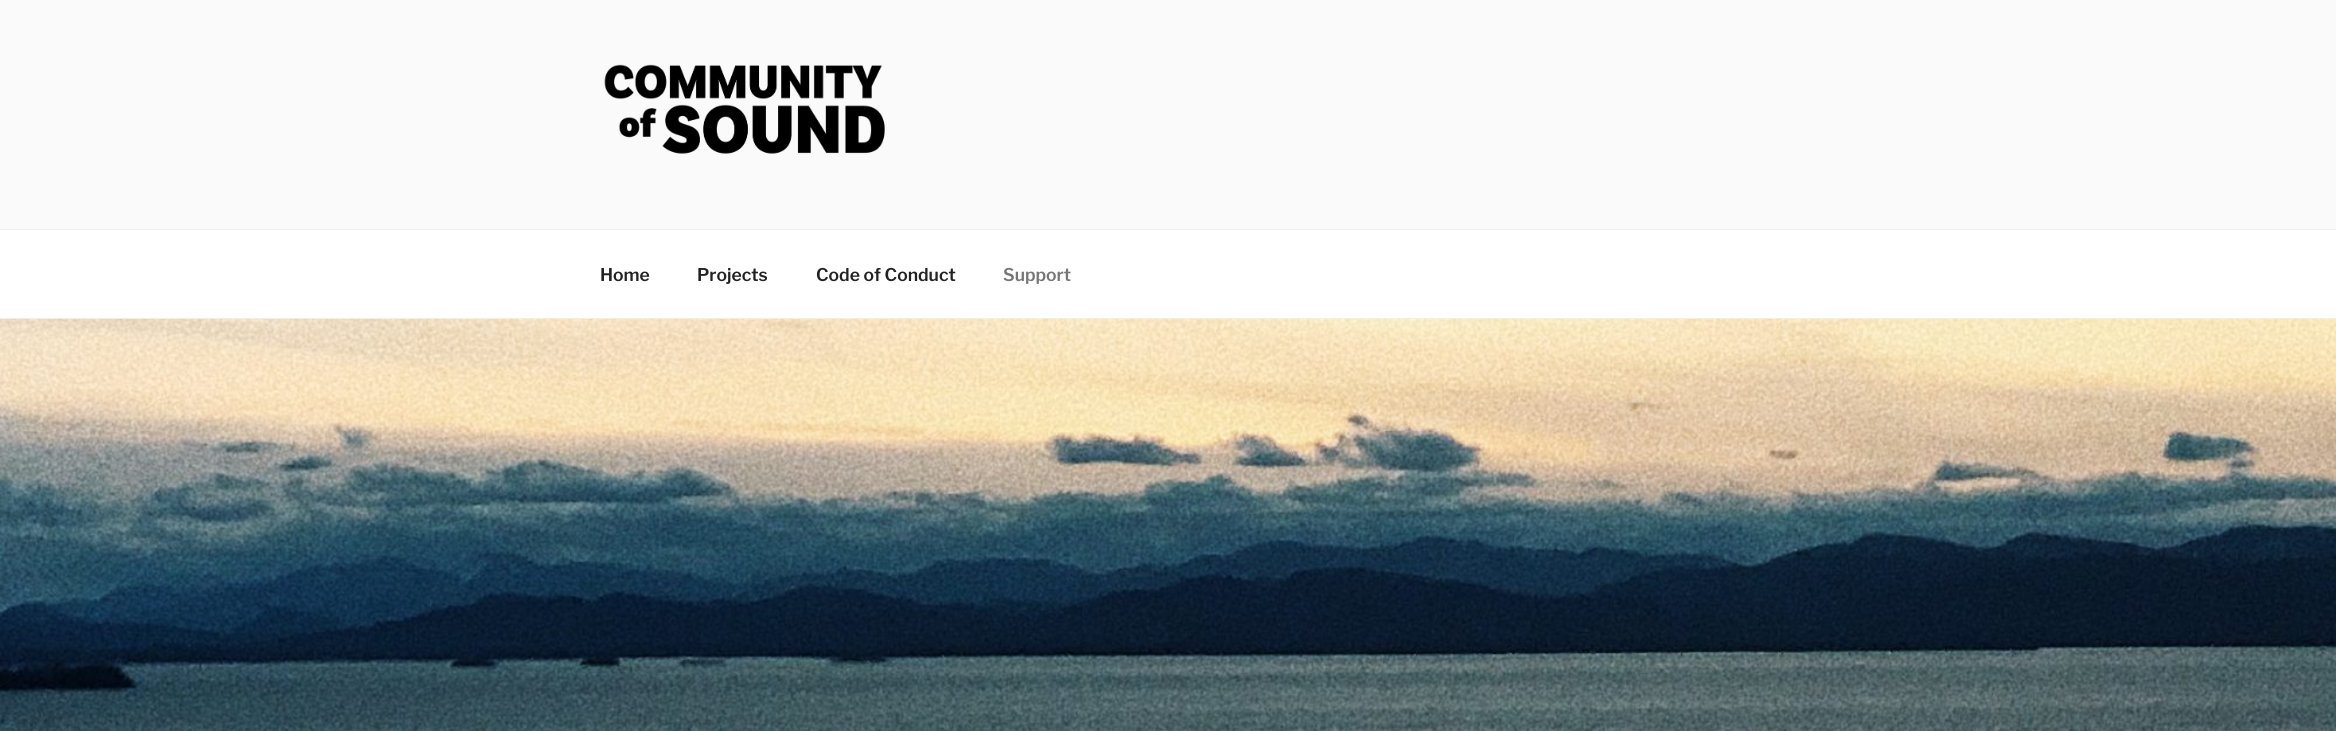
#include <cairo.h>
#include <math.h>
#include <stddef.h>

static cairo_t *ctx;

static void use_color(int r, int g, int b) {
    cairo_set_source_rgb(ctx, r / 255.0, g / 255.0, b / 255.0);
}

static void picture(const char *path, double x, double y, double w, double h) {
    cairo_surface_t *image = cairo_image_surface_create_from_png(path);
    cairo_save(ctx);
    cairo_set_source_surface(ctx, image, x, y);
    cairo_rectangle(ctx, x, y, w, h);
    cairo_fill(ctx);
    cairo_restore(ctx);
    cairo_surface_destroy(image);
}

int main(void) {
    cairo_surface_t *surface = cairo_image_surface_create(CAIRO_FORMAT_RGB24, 2336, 731);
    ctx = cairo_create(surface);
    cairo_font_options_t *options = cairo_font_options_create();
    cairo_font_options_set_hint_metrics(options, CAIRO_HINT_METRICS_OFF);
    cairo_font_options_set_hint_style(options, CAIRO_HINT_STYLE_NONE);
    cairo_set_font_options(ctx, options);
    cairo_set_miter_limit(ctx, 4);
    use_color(255, 255, 255);
    cairo_paint(ctx);
    use_color(250, 250, 250);
    cairo_rectangle(ctx, 0, 0, 2336, 229);
    cairo_fill(ctx);
    picture("img1.png", 604, 64, 281, 90);
    use_color(238, 238, 238);
    cairo_rectangle(ctx, 0, 229, 2336, 1);
    cairo_fill(ctx);
    cairo_rectangle(ctx, 0, 318, 2336, 1);
    cairo_fill(ctx);
    cairo_select_font_face(ctx, "Libre Franklin Thin", CAIRO_FONT_SLANT_NORMAL, CAIRO_FONT_WEIGHT_NORMAL);
    cairo_set_font_size(ctx, 17.5);
    use_color(34, 34, 34);
    cairo_move_to(ctx, 600, 281);
    cairo_show_text(ctx, "Home");
    cairo_move_to(ctx, 697, 281);
    cairo_show_text(ctx, "Projects");
    cairo_move_to(ctx, 816, 281);
    cairo_show_text(ctx, "Code of Conduct");
    use_color(118, 118, 118);
    cairo_move_to(ctx, 1003, 281);
    cairo_show_text(ctx, "Support");
    picture("img2.png", 0, 319, 2336, 412);
    cairo_surface_write_to_png(surface, "result.png");
    cairo_font_options_destroy(options);
    cairo_destroy(ctx);
    cairo_surface_destroy(surface);
    return 0;
}
